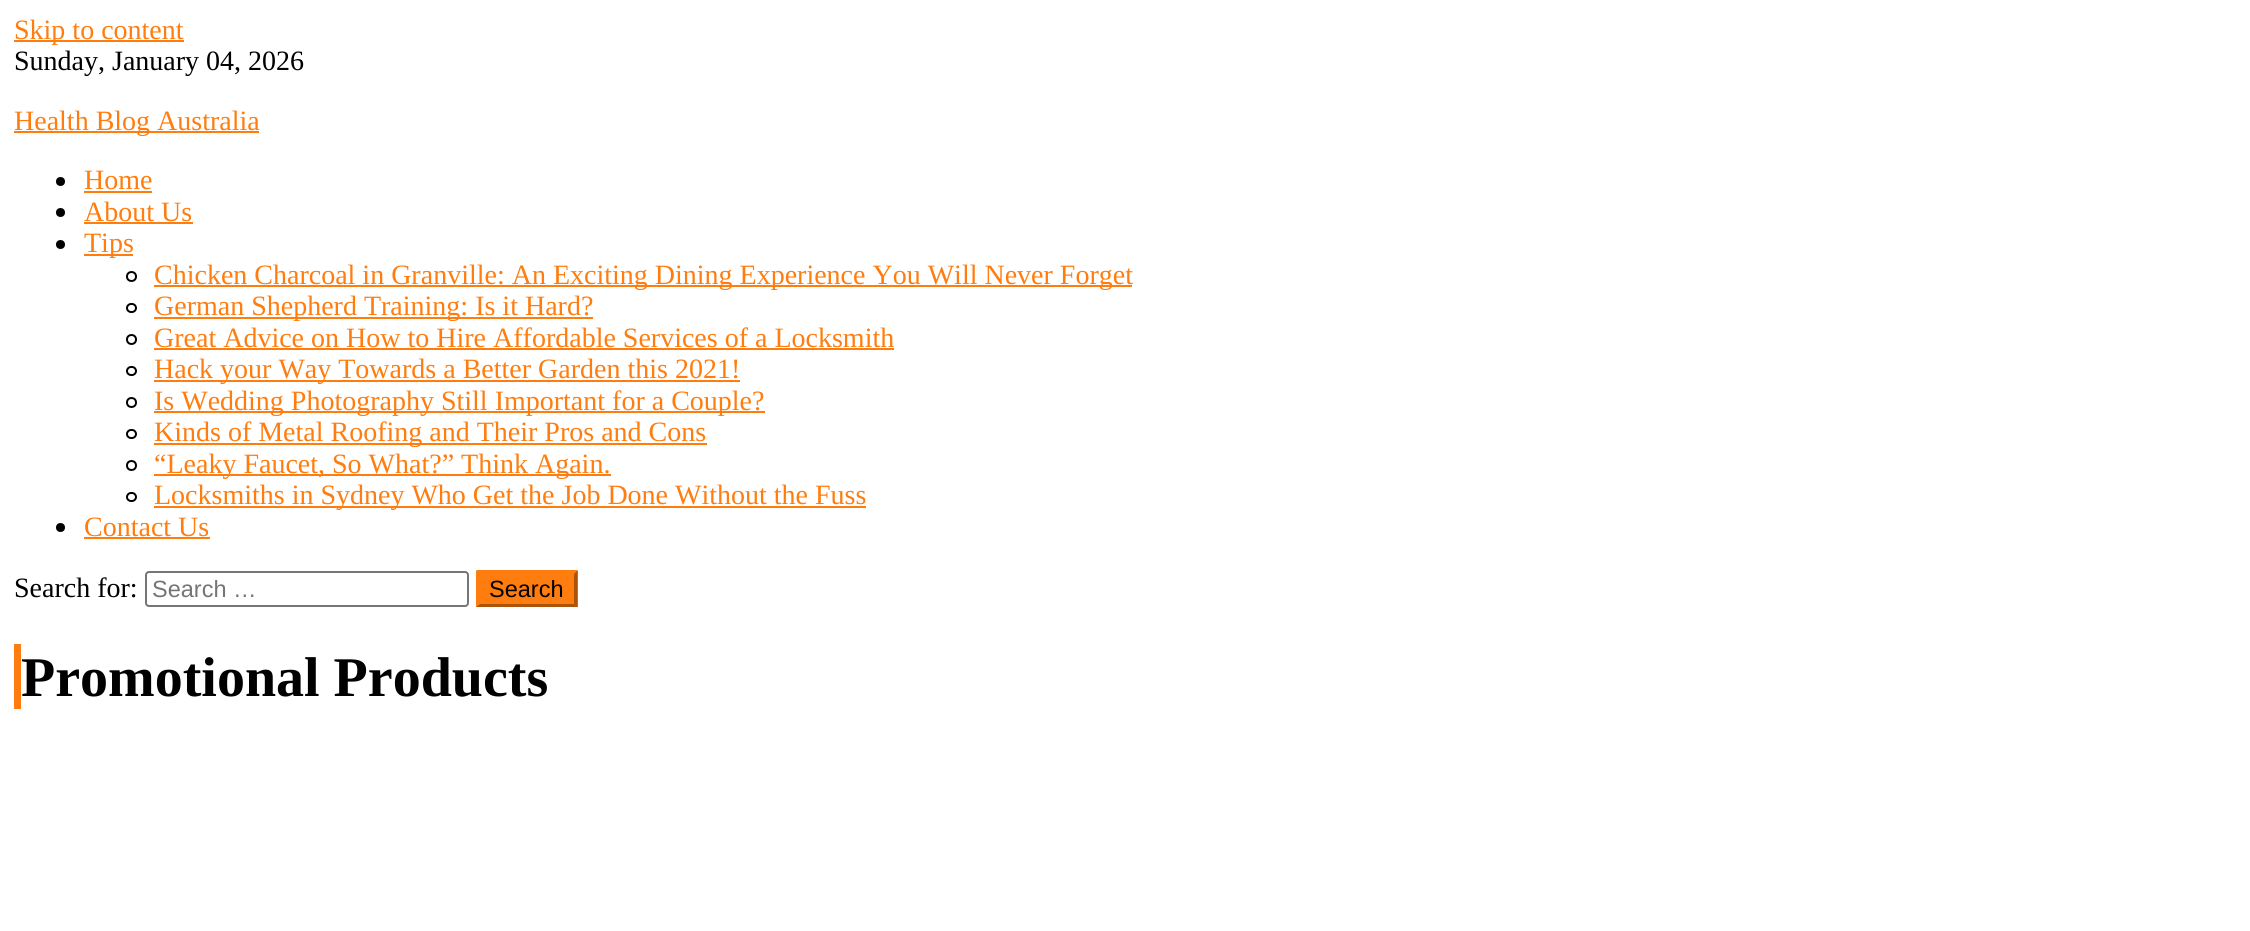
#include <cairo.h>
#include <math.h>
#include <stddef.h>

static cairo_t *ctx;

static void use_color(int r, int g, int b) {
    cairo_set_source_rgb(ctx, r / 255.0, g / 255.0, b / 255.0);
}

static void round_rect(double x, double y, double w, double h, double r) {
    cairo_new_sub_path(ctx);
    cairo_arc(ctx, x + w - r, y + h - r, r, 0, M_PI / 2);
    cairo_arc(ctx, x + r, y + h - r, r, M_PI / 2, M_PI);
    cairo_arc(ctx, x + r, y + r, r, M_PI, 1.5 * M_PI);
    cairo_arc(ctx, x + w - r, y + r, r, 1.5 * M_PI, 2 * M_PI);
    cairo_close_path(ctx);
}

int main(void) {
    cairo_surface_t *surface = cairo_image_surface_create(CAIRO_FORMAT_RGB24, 2250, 931);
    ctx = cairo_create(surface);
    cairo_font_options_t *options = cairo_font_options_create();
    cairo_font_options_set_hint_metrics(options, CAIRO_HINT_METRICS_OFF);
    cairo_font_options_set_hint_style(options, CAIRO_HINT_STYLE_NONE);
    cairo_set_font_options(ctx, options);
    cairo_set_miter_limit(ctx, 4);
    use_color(255, 255, 255);
    cairo_paint(ctx);
    use_color(255, 125, 14);
    cairo_rectangle(ctx, 14, 40, 170, 2);
    cairo_fill(ctx);
    cairo_select_font_face(ctx, "Liberation Serif", CAIRO_FONT_SLANT_NORMAL, CAIRO_FONT_WEIGHT_NORMAL);
    cairo_set_font_size(ctx, 28);
    cairo_move_to(ctx, 14, 39);
    cairo_show_text(ctx, "Skip to content");
    use_color(0, 0, 0);
    cairo_move_to(ctx, 14, 70);
    cairo_show_text(ctx, "Sunday, January 04, 2026");
    use_color(255, 125, 14);
    cairo_rectangle(ctx, 14, 131, 245, 2);
    cairo_fill(ctx);
    cairo_move_to(ctx, 14, 130);
    cairo_show_text(ctx, "Health Blog Australia");
    use_color(0, 0, 0);
    cairo_new_path(ctx);
    cairo_arc(ctx, 60.5, 181.5, 4.5, 0, 2 * M_PI);
    cairo_fill(ctx);
    use_color(255, 125, 14);
    cairo_move_to(ctx, 84, 189);
    cairo_show_text(ctx, "Home");
    cairo_rectangle(ctx, 84, 191, 68, 2);
    cairo_fill(ctx);
    use_color(0, 0, 0);
    cairo_arc(ctx, 60.5, 212.5, 4.5, 0, 2 * M_PI);
    cairo_fill(ctx);
    use_color(255, 125, 14);
    cairo_move_to(ctx, 84, 221);
    cairo_show_text(ctx, "About Us");
    cairo_rectangle(ctx, 84, 222, 109, 2);
    cairo_fill(ctx);
    use_color(0, 0, 0);
    cairo_arc(ctx, 60.5, 244.5, 4.5, 0, 2 * M_PI);
    cairo_fill(ctx);
    use_color(255, 125, 14);
    cairo_rectangle(ctx, 84, 254, 49, 2);
    cairo_fill(ctx);
    cairo_move_to(ctx, 84, 252);
    cairo_show_text(ctx, "Tips");
    cairo_new_path(ctx);
    cairo_arc(ctx, 131.5, 276.5, 4.5, 0, 2 * M_PI);
    use_color(0, 0, 0);
    cairo_stroke(ctx);
    use_color(255, 125, 14);
    cairo_rectangle(ctx, 154, 285, 978, 2);
    cairo_fill(ctx);
    cairo_move_to(ctx, 154, 284);
    cairo_show_text(ctx, "Chicken Charcoal in Granville: An Exciting Dining Experience You Will Never Forget");
    round_rect(127, 304, 9, 8, 4);
    use_color(0, 0, 0);
    cairo_stroke(ctx);
    use_color(255, 125, 14);
    cairo_rectangle(ctx, 154, 317, 439, 2);
    cairo_fill(ctx);
    cairo_move_to(ctx, 154, 315);
    cairo_show_text(ctx, "German Shepherd Training: Is it Hard?");
    cairo_new_path(ctx);
    cairo_arc(ctx, 131.5, 339.5, 4.5, 0, 2 * M_PI);
    use_color(0, 0, 0);
    cairo_stroke(ctx);
    use_color(255, 125, 14);
    cairo_move_to(ctx, 154, 347);
    cairo_show_text(ctx, "Great Advice on How to Hire Affordable Services of a Locksmith");
    cairo_rectangle(ctx, 154, 348, 740, 2);
    cairo_fill(ctx);
    round_rect(127, 367, 9, 8, 4);
    use_color(0, 0, 0);
    cairo_stroke(ctx);
    use_color(255, 125, 14);
    cairo_rectangle(ctx, 154, 380, 586, 2);
    cairo_fill(ctx);
    cairo_move_to(ctx, 154, 378);
    cairo_show_text(ctx, "Hack your Way Towards a Better Garden this 2021!");
    cairo_new_path(ctx);
    cairo_arc(ctx, 131.5, 402.5, 4.5, 0, 2 * M_PI);
    use_color(0, 0, 0);
    cairo_stroke(ctx);
    use_color(255, 125, 14);
    cairo_rectangle(ctx, 154, 411, 611, 2);
    cairo_fill(ctx);
    cairo_move_to(ctx, 154, 410);
    cairo_show_text(ctx, "Is Wedding Photography Still Important for a Couple?");
    round_rect(127, 430, 9, 8, 4);
    use_color(0, 0, 0);
    cairo_stroke(ctx);
    use_color(255, 125, 14);
    cairo_rectangle(ctx, 154, 443, 553, 2);
    cairo_fill(ctx);
    cairo_move_to(ctx, 154, 441);
    cairo_show_text(ctx, "Kinds of Metal Roofing and Their Pros and Cons");
    cairo_new_path(ctx);
    cairo_arc(ctx, 131.5, 465.5, 4.5, 0, 2 * M_PI);
    use_color(0, 0, 0);
    cairo_stroke(ctx);
    use_color(255, 125, 14);
    cairo_rectangle(ctx, 154, 474, 457, 2);
    cairo_fill(ctx);
    cairo_move_to(ctx, 154, 473);
    cairo_show_text(ctx, "“Leaky Faucet, So What?” Think Again.");
    round_rect(127, 493, 9, 8, 4);
    use_color(0, 0, 0);
    cairo_stroke(ctx);
    use_color(255, 125, 14);
    cairo_rectangle(ctx, 154, 506, 712, 2);
    cairo_fill(ctx);
    cairo_move_to(ctx, 154, 504);
    cairo_show_text(ctx, "Locksmiths in Sydney Who Get the Job Done Without the Fuss");
    use_color(0, 0, 0);
    cairo_new_path(ctx);
    cairo_arc(ctx, 60.5, 527.5, 4.5, 0, 2 * M_PI);
    cairo_fill(ctx);
    use_color(255, 125, 14);
    cairo_move_to(ctx, 84, 536);
    cairo_show_text(ctx, "Contact Us");
    cairo_rectangle(ctx, 84, 537, 126, 2);
    cairo_fill(ctx);
    use_color(0, 0, 0);
    cairo_move_to(ctx, 14, 597);
    cairo_show_text(ctx, "Search for:");
    round_rect(146, 572, 322, 34, 3);
    use_color(118, 118, 118);
    cairo_stroke(ctx);
    cairo_select_font_face(ctx, "Liberation Sans", CAIRO_FONT_SLANT_NORMAL, CAIRO_FONT_WEIGHT_NORMAL);
    cairo_set_font_size(ctx, 23.5);
    use_color(117, 117, 117);
    cairo_move_to(ctx, 152, 597);
    cairo_show_text(ctx, "Search …");
    use_color(255, 125, 14);
    cairo_rectangle(ctx, 476, 571, 102, 36);
    cairo_fill(ctx);
    cairo_new_path(ctx);
    cairo_move_to(ctx, 476, 570);
    cairo_line_to(ctx, 578, 570);
    cairo_line_to(ctx, 574, 574);
    cairo_line_to(ctx, 480, 574);
    cairo_close_path(ctx);
    cairo_fill(ctx);
    use_color(170, 83, 9);
    cairo_new_path(ctx);
    cairo_move_to(ctx, 577.5, 570.5);
    cairo_line_to(ctx, 577.5, 607);
    cairo_line_to(ctx, 574, 604);
    cairo_line_to(ctx, 574, 574);
    cairo_close_path(ctx);
    cairo_fill(ctx);
    cairo_new_path(ctx);
    cairo_move_to(ctx, 578, 607);
    cairo_line_to(ctx, 476, 607);
    cairo_line_to(ctx, 480, 604);
    cairo_line_to(ctx, 574, 604);
    cairo_close_path(ctx);
    cairo_fill(ctx);
    use_color(255, 125, 14);
    cairo_new_path(ctx);
    cairo_move_to(ctx, 476, 607);
    cairo_line_to(ctx, 476, 570.5);
    cairo_line_to(ctx, 479.5, 574);
    cairo_line_to(ctx, 479.5, 604);
    cairo_close_path(ctx);
    cairo_fill(ctx);
    use_color(0, 0, 0);
    cairo_move_to(ctx, 489, 597);
    cairo_show_text(ctx, "Search");
    use_color(255, 125, 14);
    cairo_rectangle(ctx, 14, 644, 7, 65);
    cairo_fill(ctx);
    cairo_select_font_face(ctx, "Liberation Serif", CAIRO_FONT_SLANT_NORMAL, CAIRO_FONT_WEIGHT_BOLD);
    cairo_set_font_size(ctx, 56);
    use_color(0, 0, 0);
    cairo_move_to(ctx, 21, 696);
    cairo_show_text(ctx, "Promotional Products");
    cairo_surface_write_to_png(surface, "result.png");
    cairo_font_options_destroy(options);
    cairo_destroy(ctx);
    cairo_surface_destroy(surface);
    return 0;
}
